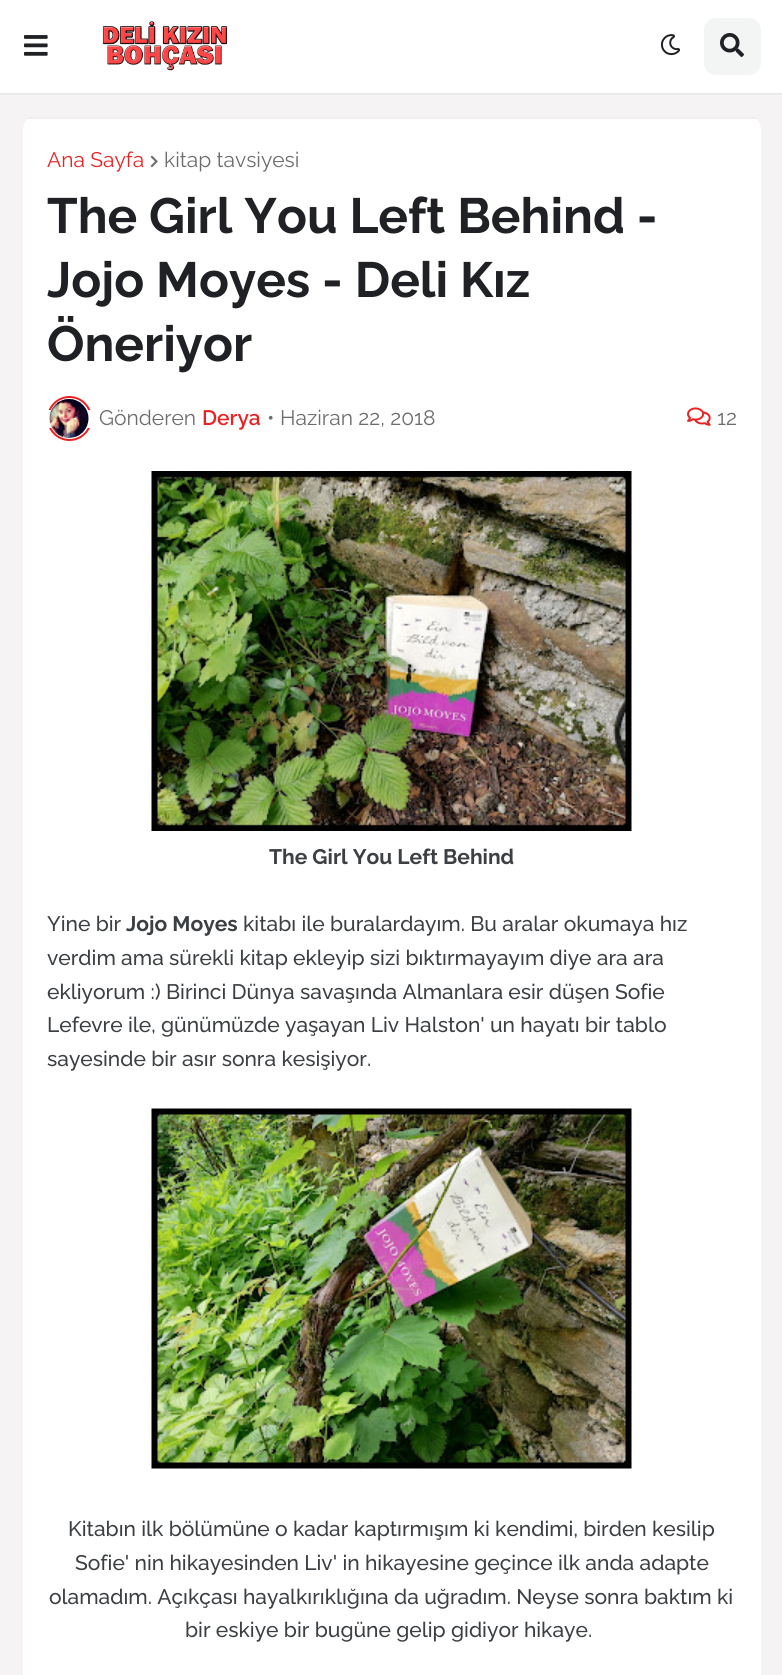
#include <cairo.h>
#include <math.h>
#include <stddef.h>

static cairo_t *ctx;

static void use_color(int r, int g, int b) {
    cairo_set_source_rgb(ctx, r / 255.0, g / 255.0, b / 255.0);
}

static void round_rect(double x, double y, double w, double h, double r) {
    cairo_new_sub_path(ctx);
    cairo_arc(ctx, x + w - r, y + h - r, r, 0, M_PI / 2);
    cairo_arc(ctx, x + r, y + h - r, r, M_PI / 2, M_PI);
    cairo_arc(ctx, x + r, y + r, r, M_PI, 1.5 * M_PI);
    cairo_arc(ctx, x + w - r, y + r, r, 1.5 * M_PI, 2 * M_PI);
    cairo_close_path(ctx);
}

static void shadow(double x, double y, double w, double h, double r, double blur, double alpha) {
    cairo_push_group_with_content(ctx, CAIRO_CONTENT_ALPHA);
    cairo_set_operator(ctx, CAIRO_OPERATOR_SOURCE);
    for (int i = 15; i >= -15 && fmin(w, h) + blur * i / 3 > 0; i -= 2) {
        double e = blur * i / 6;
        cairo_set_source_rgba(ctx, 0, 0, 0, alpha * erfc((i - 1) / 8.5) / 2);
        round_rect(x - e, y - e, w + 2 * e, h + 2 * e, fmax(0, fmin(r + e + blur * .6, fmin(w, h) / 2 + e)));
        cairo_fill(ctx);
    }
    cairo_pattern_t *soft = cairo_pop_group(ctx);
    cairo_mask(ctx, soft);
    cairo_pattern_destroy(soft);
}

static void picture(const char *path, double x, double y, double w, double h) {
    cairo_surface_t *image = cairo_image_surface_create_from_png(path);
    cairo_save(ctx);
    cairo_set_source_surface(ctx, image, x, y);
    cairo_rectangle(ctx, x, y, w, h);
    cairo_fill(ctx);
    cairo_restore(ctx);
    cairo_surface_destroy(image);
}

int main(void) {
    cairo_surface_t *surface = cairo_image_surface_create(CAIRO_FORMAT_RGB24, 782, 1675);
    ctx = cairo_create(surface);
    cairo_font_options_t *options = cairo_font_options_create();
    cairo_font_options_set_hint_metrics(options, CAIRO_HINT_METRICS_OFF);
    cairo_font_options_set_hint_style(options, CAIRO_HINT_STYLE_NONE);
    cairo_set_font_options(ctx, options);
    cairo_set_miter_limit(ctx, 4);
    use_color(245, 243, 243);
    cairo_paint(ctx);
    use_color(255, 255, 255);
    cairo_rectangle(ctx, 0, 0, 782, 93);
    cairo_fill(ctx);
    cairo_save(ctx);
    cairo_rectangle(ctx, 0, 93, 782, 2);
    cairo_clip(ctx);
    use_color(0, 0, 0);
    shadow(0, 2, 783, 93, 0, 1.5, 0.05);
    cairo_restore(ctx);
    picture("img1.png", 24, 35, 24, 21);
    picture("img2.png", 102, 21, 125, 50);
    picture("img3.png", 660, 34, 20, 22);
    use_color(243, 245, 245);
    round_rect(704, 18, 57, 57, 12);
    cairo_fill(ctx);
    picture("img4.png", 720, 33, 24, 24);
    use_color(255, 255, 255);
    round_rect(23, 117, 738, 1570, 12);
    cairo_fill(ctx);
    cairo_set_source_rgba(ctx, 0.608, 0.608, 0.608, 0.15);
    cairo_rectangle(ctx, 29, 117, 726, 2);
    cairo_fill(ctx);
    cairo_select_font_face(ctx, "Raleway", CAIRO_FONT_SLANT_NORMAL, CAIRO_FONT_WEIGHT_NORMAL);
    cairo_set_font_size(ctx, 21);
    use_color(233, 35, 35);
    cairo_move_to(ctx, 47, 167);
    cairo_show_text(ctx, "Ana Sayfa");
    picture("img5.png", 150, 155, 8, 13);
    use_color(110, 107, 107);
    cairo_move_to(ctx, 164, 167);
    cairo_show_text(ctx, "kitap tavsiyesi");
    cairo_select_font_face(ctx, "Raleway", CAIRO_FONT_SLANT_NORMAL, CAIRO_FONT_WEIGHT_BOLD);
    cairo_set_font_size(ctx, 49.5);
    use_color(32, 33, 36);
    cairo_move_to(ctx, 47, 233);
    cairo_show_text(ctx, "The Girl You Left Behind -");
    cairo_move_to(ctx, 47, 297);
    cairo_show_text(ctx, "Jojo Moyes - Deli Kız");
    cairo_move_to(ctx, 47, 361);
    cairo_show_text(ctx, "Öneriyor");
    cairo_new_path(ctx);
    cairo_arc(ctx, 69.5, 418.5, 21.5, 0, 2 * M_PI);
    use_color(233, 35, 35);
    cairo_stroke(ctx);
    use_color(255, 255, 255);
    cairo_rectangle(ctx, 47, 410, 45, 18);
    cairo_fill(ctx);
    picture("img6.png", 49, 399, 40, 39);
    cairo_select_font_face(ctx, "Raleway", CAIRO_FONT_SLANT_NORMAL, CAIRO_FONT_WEIGHT_NORMAL);
    cairo_set_font_size(ctx, 21);
    use_color(110, 107, 107);
    cairo_move_to(ctx, 99, 425);
    cairo_show_text(ctx, "Gönderen");
    cairo_select_font_face(ctx, "Raleway SemiBold", CAIRO_FONT_SLANT_NORMAL, CAIRO_FONT_WEIGHT_NORMAL);
    use_color(233, 35, 35);
    cairo_move_to(ctx, 202, 425);
    cairo_show_text(ctx, "Derya");
    cairo_select_font_face(ctx, "Raleway", CAIRO_FONT_SLANT_NORMAL, CAIRO_FONT_WEIGHT_NORMAL);
    use_color(110, 107, 107);
    cairo_move_to(ctx, 267, 425);
    cairo_show_text(ctx, "•");
    cairo_move_to(ctx, 280, 425);
    cairo_show_text(ctx, "Haziran 22, 2018");
    picture("img7.png", 687, 407, 24, 19);
    cairo_move_to(ctx, 717, 425);
    cairo_show_text(ctx, "12");
    picture("img8.png", 151, 471, 481, 360);
    cairo_select_font_face(ctx, "Raleway", CAIRO_FONT_SLANT_NORMAL, CAIRO_FONT_WEIGHT_BOLD);
    use_color(60, 64, 67);
    cairo_move_to(ctx, 269, 864);
    cairo_show_text(ctx, "The Girl You Left Behind");
    cairo_select_font_face(ctx, "Raleway Medium", CAIRO_FONT_SLANT_NORMAL, CAIRO_FONT_WEIGHT_NORMAL);
    cairo_move_to(ctx, 47, 931);
    cairo_show_text(ctx, "Yine bir");
    cairo_select_font_face(ctx, "Raleway", CAIRO_FONT_SLANT_NORMAL, CAIRO_FONT_WEIGHT_BOLD);
    cairo_move_to(ctx, 126, 931);
    cairo_show_text(ctx, "Jojo Moyes");
    cairo_select_font_face(ctx, "Raleway Medium", CAIRO_FONT_SLANT_NORMAL, CAIRO_FONT_WEIGHT_NORMAL);
    cairo_move_to(ctx, 243, 931);
    cairo_show_text(ctx, "kitabı ile buralardayım. Bu aralar okumaya hız");
    cairo_move_to(ctx, 47, 965);
    cairo_show_text(ctx, "verdim ama sürekli kitap ekleyip sizi bıktırmayayım diye ara ara");
    cairo_move_to(ctx, 47, 999);
    cairo_show_text(ctx, "ekliyorum :) Birinci Dünya savaşında Almanlara esir düşen Sofie");
    cairo_move_to(ctx, 47, 1032);
    cairo_show_text(ctx, "Lefevre ile, günümüzde yaşayan Liv Halston' un hayatı bir tablo");
    cairo_move_to(ctx, 47, 1066);
    cairo_show_text(ctx, "sayesinde bir asır sonra kesişiyor.");
    picture("img9.png", 151, 1108, 481, 361);
    cairo_move_to(ctx, 68, 1536);
    cairo_show_text(ctx, "Kitabın ilk bölümüne o kadar kaptırmışım ki kendimi, birden kesilip");
    cairo_move_to(ctx, 75, 1570);
    cairo_show_text(ctx, "Sofie' nin hikayesinden Liv' in hikayesine geçince ilk anda adapte");
    cairo_move_to(ctx, 49, 1604);
    cairo_show_text(ctx, "olamadım. Açıkçası hayalkırıklığına da uğradım. Neyse sonra baktım ki");
    cairo_move_to(ctx, 185, 1637);
    cairo_show_text(ctx, "bir eskiye bir bugüne gelip gidiyor hikaye.");
    cairo_surface_write_to_png(surface, "result.png");
    cairo_font_options_destroy(options);
    cairo_destroy(ctx);
    cairo_surface_destroy(surface);
    return 0;
}
